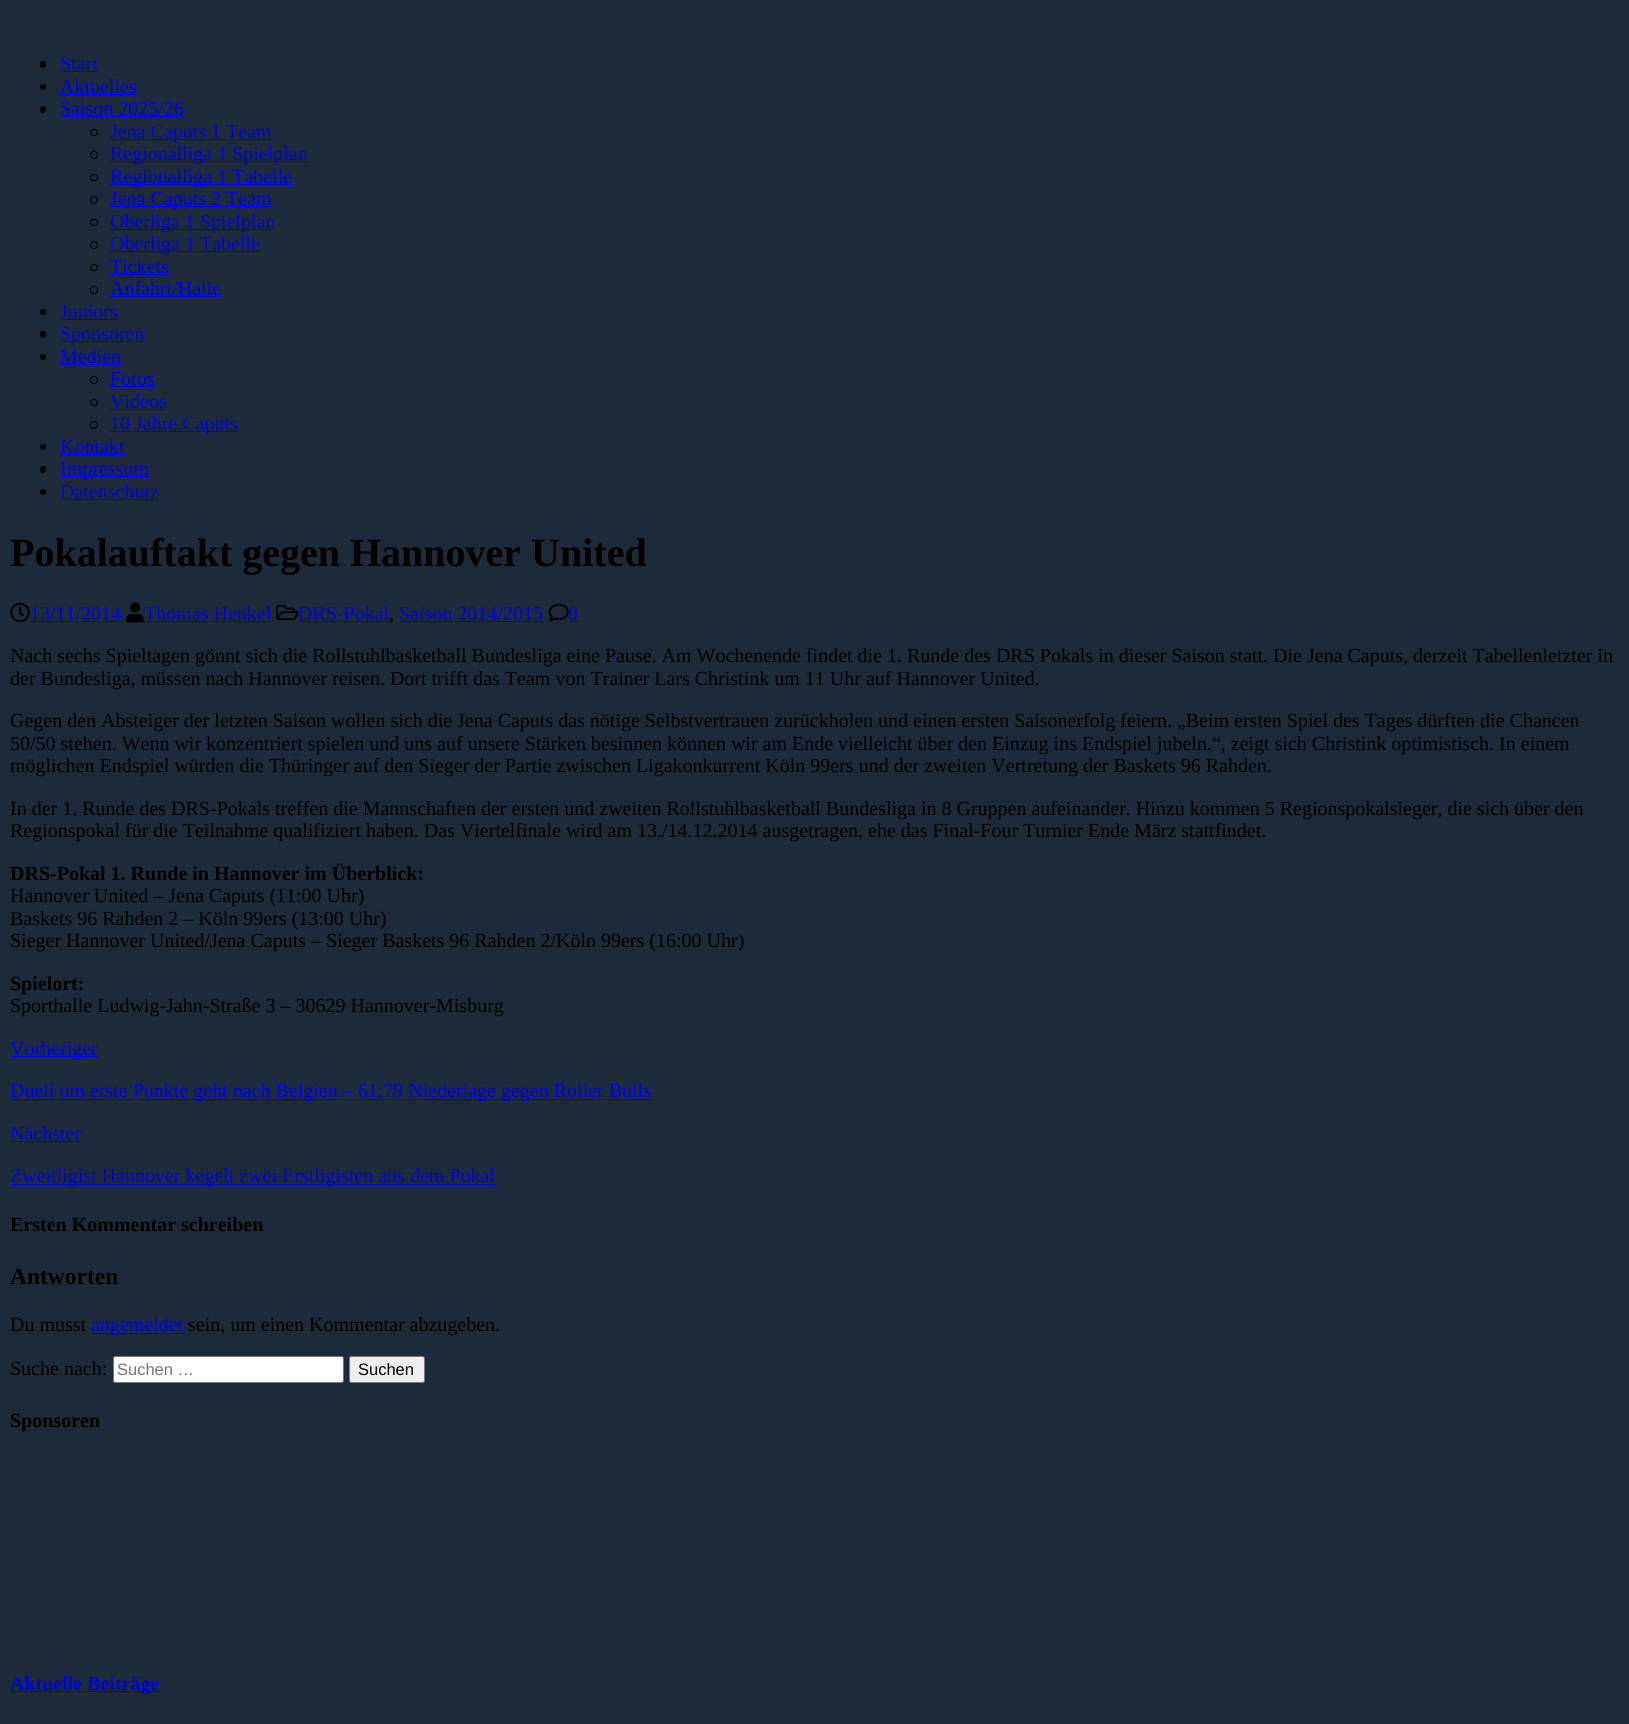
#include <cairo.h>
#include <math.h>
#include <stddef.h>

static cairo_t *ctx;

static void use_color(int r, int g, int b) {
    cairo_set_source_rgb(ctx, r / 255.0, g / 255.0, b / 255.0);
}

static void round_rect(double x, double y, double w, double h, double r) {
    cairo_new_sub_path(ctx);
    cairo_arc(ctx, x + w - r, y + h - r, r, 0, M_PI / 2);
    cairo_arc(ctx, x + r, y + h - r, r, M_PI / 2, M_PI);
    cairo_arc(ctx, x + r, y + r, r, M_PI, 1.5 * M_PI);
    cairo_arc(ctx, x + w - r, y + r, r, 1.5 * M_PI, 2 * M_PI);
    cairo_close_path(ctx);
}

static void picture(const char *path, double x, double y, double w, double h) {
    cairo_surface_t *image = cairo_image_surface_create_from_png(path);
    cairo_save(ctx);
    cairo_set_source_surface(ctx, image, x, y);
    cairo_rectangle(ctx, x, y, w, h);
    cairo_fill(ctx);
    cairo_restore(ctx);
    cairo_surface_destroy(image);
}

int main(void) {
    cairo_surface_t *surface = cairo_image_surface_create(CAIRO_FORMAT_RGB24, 1629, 1724);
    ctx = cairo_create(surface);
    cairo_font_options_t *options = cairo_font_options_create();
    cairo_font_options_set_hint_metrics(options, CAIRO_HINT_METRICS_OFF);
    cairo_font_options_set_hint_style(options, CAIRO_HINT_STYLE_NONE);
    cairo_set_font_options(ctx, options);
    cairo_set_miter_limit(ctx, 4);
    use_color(28, 42, 57);
    cairo_paint(ctx);
    use_color(0, 0, 0);
    round_rect(40, 61, 6, 7, 3);
    cairo_fill(ctx);
    cairo_select_font_face(ctx, "Liberation Serif", CAIRO_FONT_SLANT_NORMAL, CAIRO_FONT_WEIGHT_NORMAL);
    cairo_set_font_size(ctx, 20);
    use_color(0, 0, 238);
    cairo_move_to(ctx, 60, 70);
    cairo_show_text(ctx, "Start");
    cairo_rectangle(ctx, 60, 71, 38, 1);
    cairo_fill(ctx);
    use_color(0, 0, 0);
    cairo_arc(ctx, 43, 87, 3, 0, 2 * M_PI);
    cairo_fill(ctx);
    use_color(0, 0, 238);
    cairo_move_to(ctx, 60, 93);
    cairo_show_text(ctx, "Aktuelles");
    cairo_rectangle(ctx, 60, 94, 76, 1);
    cairo_fill(ctx);
    use_color(0, 0, 0);
    round_rect(40, 106, 6, 7, 3);
    cairo_fill(ctx);
    use_color(0, 0, 238);
    cairo_move_to(ctx, 60, 115);
    cairo_show_text(ctx, "Saison 2025/26");
    cairo_rectangle(ctx, 60, 116, 124, 1);
    cairo_fill(ctx);
    round_rect(90.5, 129.5, 7, 6, 3);
    use_color(0, 0, 0);
    cairo_set_line_width(ctx, 1);
    cairo_stroke(ctx);
    use_color(0, 0, 238);
    cairo_rectangle(ctx, 110, 139, 161, 1);
    cairo_fill(ctx);
    cairo_move_to(ctx, 110, 138);
    cairo_show_text(ctx, "Jena Caputs 1 Team");
    cairo_new_path(ctx);
    cairo_arc(ctx, 94, 155, 3.5, 0, 2 * M_PI);
    use_color(0, 0, 0);
    cairo_stroke(ctx);
    use_color(0, 0, 238);
    cairo_rectangle(ctx, 110, 161, 198, 1);
    cairo_fill(ctx);
    cairo_move_to(ctx, 110, 160);
    cairo_show_text(ctx, "Regionalliga 1 Spielplan");
    round_rect(90.5, 174.5, 7, 6, 3);
    use_color(0, 0, 0);
    cairo_stroke(ctx);
    use_color(0, 0, 238);
    cairo_rectangle(ctx, 110, 184, 183, 1);
    cairo_fill(ctx);
    cairo_move_to(ctx, 110, 183);
    cairo_show_text(ctx, "Regionalliga 1 Tabelle");
    cairo_new_path(ctx);
    cairo_arc(ctx, 94, 200, 3.5, 0, 2 * M_PI);
    use_color(0, 0, 0);
    cairo_stroke(ctx);
    use_color(0, 0, 238);
    cairo_rectangle(ctx, 110, 206, 161, 1);
    cairo_fill(ctx);
    cairo_move_to(ctx, 110, 205);
    cairo_show_text(ctx, "Jena Caputs 2 Team");
    round_rect(90.5, 219.5, 7, 6, 3);
    use_color(0, 0, 0);
    cairo_stroke(ctx);
    use_color(0, 0, 238);
    cairo_rectangle(ctx, 110, 229, 165, 1);
    cairo_fill(ctx);
    cairo_move_to(ctx, 110, 228);
    cairo_show_text(ctx, "Oberliga 1 Spielplan");
    cairo_new_path(ctx);
    cairo_arc(ctx, 94, 245, 3.5, 0, 2 * M_PI);
    use_color(0, 0, 0);
    cairo_stroke(ctx);
    use_color(0, 0, 238);
    cairo_rectangle(ctx, 110, 251, 150, 1);
    cairo_fill(ctx);
    cairo_move_to(ctx, 110, 250);
    cairo_show_text(ctx, "Oberliga 1 Tabelle");
    round_rect(90.5, 264.5, 7, 6, 3);
    use_color(0, 0, 0);
    cairo_stroke(ctx);
    use_color(0, 0, 238);
    cairo_move_to(ctx, 110, 273);
    cairo_show_text(ctx, "Tickets");
    cairo_rectangle(ctx, 110, 274, 59, 1);
    cairo_fill(ctx);
    cairo_arc(ctx, 94, 290, 3.5, 0, 2 * M_PI);
    use_color(0, 0, 0);
    cairo_stroke(ctx);
    use_color(0, 0, 238);
    cairo_move_to(ctx, 110, 295);
    cairo_show_text(ctx, "Anfahrt/Halle");
    cairo_rectangle(ctx, 110, 296, 111, 1);
    cairo_fill(ctx);
    use_color(0, 0, 0);
    cairo_arc(ctx, 43, 312, 3, 0, 2 * M_PI);
    cairo_fill(ctx);
    use_color(0, 0, 238);
    cairo_move_to(ctx, 60, 318);
    cairo_show_text(ctx, "Juniors");
    cairo_rectangle(ctx, 60, 319, 58, 1);
    cairo_fill(ctx);
    use_color(0, 0, 0);
    round_rect(40, 331, 6, 7, 3);
    cairo_fill(ctx);
    use_color(0, 0, 238);
    cairo_rectangle(ctx, 60, 341, 85, 1);
    cairo_fill(ctx);
    cairo_move_to(ctx, 60, 340);
    cairo_show_text(ctx, "Sponsoren");
    use_color(0, 0, 0);
    cairo_new_path(ctx);
    cairo_arc(ctx, 43, 357, 3, 0, 2 * M_PI);
    cairo_fill(ctx);
    use_color(0, 0, 238);
    cairo_move_to(ctx, 60, 363);
    cairo_show_text(ctx, "Medien");
    cairo_rectangle(ctx, 60, 364, 61, 1);
    cairo_fill(ctx);
    cairo_arc(ctx, 94, 380, 3.5, 0, 2 * M_PI);
    use_color(0, 0, 0);
    cairo_stroke(ctx);
    use_color(0, 0, 238);
    cairo_move_to(ctx, 110, 385);
    cairo_show_text(ctx, "Fotos");
    cairo_rectangle(ctx, 110, 386, 45, 1);
    cairo_fill(ctx);
    round_rect(90.5, 399.5, 7, 6, 3);
    use_color(0, 0, 0);
    cairo_stroke(ctx);
    use_color(0, 0, 238);
    cairo_move_to(ctx, 110, 408);
    cairo_show_text(ctx, "Videos");
    cairo_rectangle(ctx, 110, 409, 56, 1);
    cairo_fill(ctx);
    cairo_arc(ctx, 94, 425, 3.5, 0, 2 * M_PI);
    use_color(0, 0, 0);
    cairo_stroke(ctx);
    use_color(0, 0, 238);
    cairo_rectangle(ctx, 110, 431, 128, 1);
    cairo_fill(ctx);
    cairo_move_to(ctx, 110, 430);
    cairo_show_text(ctx, "10 Jahre Caputs");
    use_color(0, 0, 0);
    cairo_new_path(ctx);
    cairo_arc(ctx, 43, 447, 3, 0, 2 * M_PI);
    cairo_fill(ctx);
    use_color(0, 0, 238);
    cairo_move_to(ctx, 60, 453);
    cairo_show_text(ctx, "Kontakt");
    cairo_rectangle(ctx, 60, 454, 65, 1);
    cairo_fill(ctx);
    use_color(0, 0, 0);
    round_rect(40, 466, 6, 7, 3);
    cairo_fill(ctx);
    use_color(0, 0, 238);
    cairo_rectangle(ctx, 60, 476, 89, 1);
    cairo_fill(ctx);
    cairo_move_to(ctx, 60, 475);
    cairo_show_text(ctx, "Impressum");
    use_color(0, 0, 0);
    cairo_new_path(ctx);
    cairo_arc(ctx, 43, 492, 3, 0, 2 * M_PI);
    cairo_fill(ctx);
    use_color(0, 0, 238);
    cairo_move_to(ctx, 60, 498);
    cairo_show_text(ctx, "Datenschutz");
    cairo_rectangle(ctx, 60, 499, 99, 1);
    cairo_fill(ctx);
    cairo_select_font_face(ctx, "Liberation Serif", CAIRO_FONT_SLANT_NORMAL, CAIRO_FONT_WEIGHT_BOLD);
    cairo_set_font_size(ctx, 40);
    use_color(0, 0, 0);
    cairo_move_to(ctx, 10, 566);
    cairo_show_text(ctx, "Pokalauftakt gegen Hannover United");
    picture("img1.png", 10, 602, 20, 21);
    cairo_select_font_face(ctx, "Liberation Serif", CAIRO_FONT_SLANT_NORMAL, CAIRO_FONT_WEIGHT_NORMAL);
    cairo_set_font_size(ctx, 20);
    use_color(0, 0, 238);
    cairo_move_to(ctx, 30, 620);
    cairo_show_text(ctx, "13/11/2014");
    cairo_rectangle(ctx, 30, 621, 91, 1);
    cairo_fill(ctx);
    picture("img2.png", 126, 602, 18, 21);
    cairo_move_to(ctx, 144, 620);
    cairo_show_text(ctx, "Thomas Henkel");
    cairo_rectangle(ctx, 144, 621, 127, 1);
    cairo_fill(ctx);
    picture("img3.png", 276, 605, 23, 15);
    cairo_move_to(ctx, 298, 620);
    cairo_show_text(ctx, "DRS-Pokal");
    cairo_rectangle(ctx, 299, 621, 91, 1);
    cairo_fill(ctx);
    use_color(0, 0, 0);
    cairo_move_to(ctx, 389, 620);
    cairo_show_text(ctx, ",");
    use_color(0, 0, 238);
    cairo_move_to(ctx, 399, 620);
    cairo_show_text(ctx, "Saison 2014/2015");
    cairo_rectangle(ctx, 400, 621, 144, 1);
    cairo_fill(ctx);
    picture("img4.png", 548, 603, 21, 19);
    cairo_move_to(ctx, 568, 620);
    cairo_show_text(ctx, "0");
    cairo_rectangle(ctx, 569, 621, 10, 1);
    cairo_fill(ctx);
    use_color(0, 0, 0);
    cairo_move_to(ctx, 10, 662);
    cairo_show_text(ctx, "Nach sechs Spieltagen gönnt sich die Rollstuhlbasketball Bundesliga eine Pause. Am Wochenende findet die 1. Runde des DRS Pokals in dieser Saison statt. Die Jena Caputs, derzeit Tabellenletzter in");
    cairo_move_to(ctx, 10, 685);
    cairo_show_text(ctx, "der Bundesliga, müssen nach Hannover reisen. Dort trifft das Team von Trainer Lars Christink um 11 Uhr auf Hannover United.");
    cairo_move_to(ctx, 10, 727);
    cairo_show_text(ctx, "Gegen den Absteiger der letzten Saison wollen sich die Jena Caputs das nötige Selbstvertrauen zurückholen und einen ersten Saisonerfolg feiern. „Beim ersten Spiel des Tages dürften die Chancen");
    cairo_move_to(ctx, 10, 750);
    cairo_show_text(ctx, "50/50 stehen. Wenn wir konzentriert spielen und uns auf unsere Stärken besinnen können wir am Ende vielleicht über den Einzug ins Endspiel jubeln.“, zeigt sich Christink optimistisch. In einem");
    cairo_move_to(ctx, 10, 772);
    cairo_show_text(ctx, "möglichen Endspiel würden die Thüringer auf den Sieger der Partie zwischen Ligakonkurrent Köln 99ers und der zweiten Vertretung der Baskets 96 Rahden.");
    cairo_move_to(ctx, 10, 815);
    cairo_show_text(ctx, "In der 1. Runde des DRS-Pokals treffen die Mannschaften der ersten und zweiten Rollstuhlbasketball Bundesliga in 8 Gruppen aufeinander. Hinzu kommen 5 Regionspokalsieger, die sich über den");
    cairo_move_to(ctx, 10, 837);
    cairo_show_text(ctx, "Regionspokal für die Teilnahme qualifiziert haben. Das Viertelfinale wird am 13./14.12.2014 ausgetragen, ehe das Final-Four Turnier Ende März stattfindet.");
    cairo_select_font_face(ctx, "Liberation Serif", CAIRO_FONT_SLANT_NORMAL, CAIRO_FONT_WEIGHT_BOLD);
    cairo_move_to(ctx, 10, 880);
    cairo_show_text(ctx, "DRS-Pokal 1. Runde in Hannover im Überblick:");
    cairo_select_font_face(ctx, "Liberation Serif", CAIRO_FONT_SLANT_NORMAL, CAIRO_FONT_WEIGHT_NORMAL);
    cairo_move_to(ctx, 10, 902);
    cairo_show_text(ctx, "Hannover United – Jena Caputs (11:00 Uhr)");
    cairo_move_to(ctx, 10, 925);
    cairo_show_text(ctx, "Baskets 96 Rahden 2 – Köln 99ers (13:00 Uhr)");
    cairo_move_to(ctx, 10, 947);
    cairo_show_text(ctx, "Sieger Hannover United/Jena Caputs – Sieger Baskets 96 Rahden 2/Köln 99ers (16:00 Uhr)");
    cairo_select_font_face(ctx, "Liberation Serif", CAIRO_FONT_SLANT_NORMAL, CAIRO_FONT_WEIGHT_BOLD);
    cairo_move_to(ctx, 10, 990);
    cairo_show_text(ctx, "Spielort:");
    cairo_select_font_face(ctx, "Liberation Serif", CAIRO_FONT_SLANT_NORMAL, CAIRO_FONT_WEIGHT_NORMAL);
    cairo_move_to(ctx, 10, 1012);
    cairo_show_text(ctx, "Sporthalle Ludwig-Jahn-Straße 3 – 30629 Hannover-Misburg");
    use_color(0, 0, 238);
    cairo_rectangle(ctx, 10, 1056, 88, 1);
    cairo_fill(ctx);
    cairo_move_to(ctx, 10, 1055);
    cairo_show_text(ctx, "Vorheriger");
    cairo_rectangle(ctx, 10, 1099, 641, 1);
    cairo_fill(ctx);
    cairo_move_to(ctx, 10, 1097);
    cairo_show_text(ctx, "Duell um erste Punkte geht nach Belgien – 61:79 Niederlage gegen Roller Bulls");
    cairo_move_to(ctx, 10, 1140);
    cairo_show_text(ctx, "Nächster");
    cairo_rectangle(ctx, 10, 1141, 71, 1);
    cairo_fill(ctx);
    cairo_rectangle(ctx, 10, 1184, 485, 1);
    cairo_fill(ctx);
    cairo_move_to(ctx, 10, 1182);
    cairo_show_text(ctx, "Zweitligist Hannover kegelt zwei Erstligisten aus dem Pokal");
    cairo_select_font_face(ctx, "Liberation Serif", CAIRO_FONT_SLANT_NORMAL, CAIRO_FONT_WEIGHT_BOLD);
    use_color(0, 0, 0);
    cairo_move_to(ctx, 10, 1231);
    cairo_show_text(ctx, "Ersten Kommentar schreiben");
    cairo_set_font_size(ctx, 23.5);
    cairo_move_to(ctx, 10, 1284);
    cairo_show_text(ctx, "Antworten");
    cairo_select_font_face(ctx, "Liberation Serif", CAIRO_FONT_SLANT_NORMAL, CAIRO_FONT_WEIGHT_NORMAL);
    cairo_set_font_size(ctx, 20);
    cairo_move_to(ctx, 10, 1331);
    cairo_show_text(ctx, "Du musst");
    use_color(0, 0, 238);
    cairo_rectangle(ctx, 91, 1333, 93, 1);
    cairo_fill(ctx);
    cairo_move_to(ctx, 91, 1331);
    cairo_show_text(ctx, "angemeldet");
    use_color(0, 0, 0);
    cairo_move_to(ctx, 188, 1331);
    cairo_show_text(ctx, "sein, um einen Kommentar abzugeben.");
    cairo_move_to(ctx, 10, 1375);
    cairo_show_text(ctx, "Suche nach:");
    use_color(255, 255, 255);
    round_rect(113.5, 1356.5, 230, 26, 2);
    cairo_fill_preserve(ctx);
    use_color(118, 118, 118);
    cairo_stroke(ctx);
    cairo_select_font_face(ctx, "Liberation Sans", CAIRO_FONT_SLANT_NORMAL, CAIRO_FONT_WEIGHT_NORMAL);
    cairo_set_font_size(ctx, 16.5);
    use_color(117, 117, 117);
    cairo_move_to(ctx, 117, 1375);
    cairo_show_text(ctx, "Suchen …");
    use_color(239, 239, 239);
    round_rect(349.5, 1356.5, 75, 26, 2);
    cairo_fill_preserve(ctx);
    use_color(118, 118, 118);
    cairo_stroke(ctx);
    use_color(0, 0, 0);
    cairo_move_to(ctx, 358, 1375);
    cairo_show_text(ctx, "Suchen");
    cairo_select_font_face(ctx, "Liberation Serif", CAIRO_FONT_SLANT_NORMAL, CAIRO_FONT_WEIGHT_BOLD);
    cairo_set_font_size(ctx, 20);
    cairo_move_to(ctx, 10, 1427);
    cairo_show_text(ctx, "Sponsoren");
    use_color(0, 0, 238);
    cairo_rectangle(ctx, 10, 1691, 150, 1);
    cairo_fill(ctx);
    cairo_move_to(ctx, 10, 1690);
    cairo_show_text(ctx, "Aktuelle Beiträge");
    cairo_surface_write_to_png(surface, "result.png");
    cairo_font_options_destroy(options);
    cairo_destroy(ctx);
    cairo_surface_destroy(surface);
    return 0;
}
